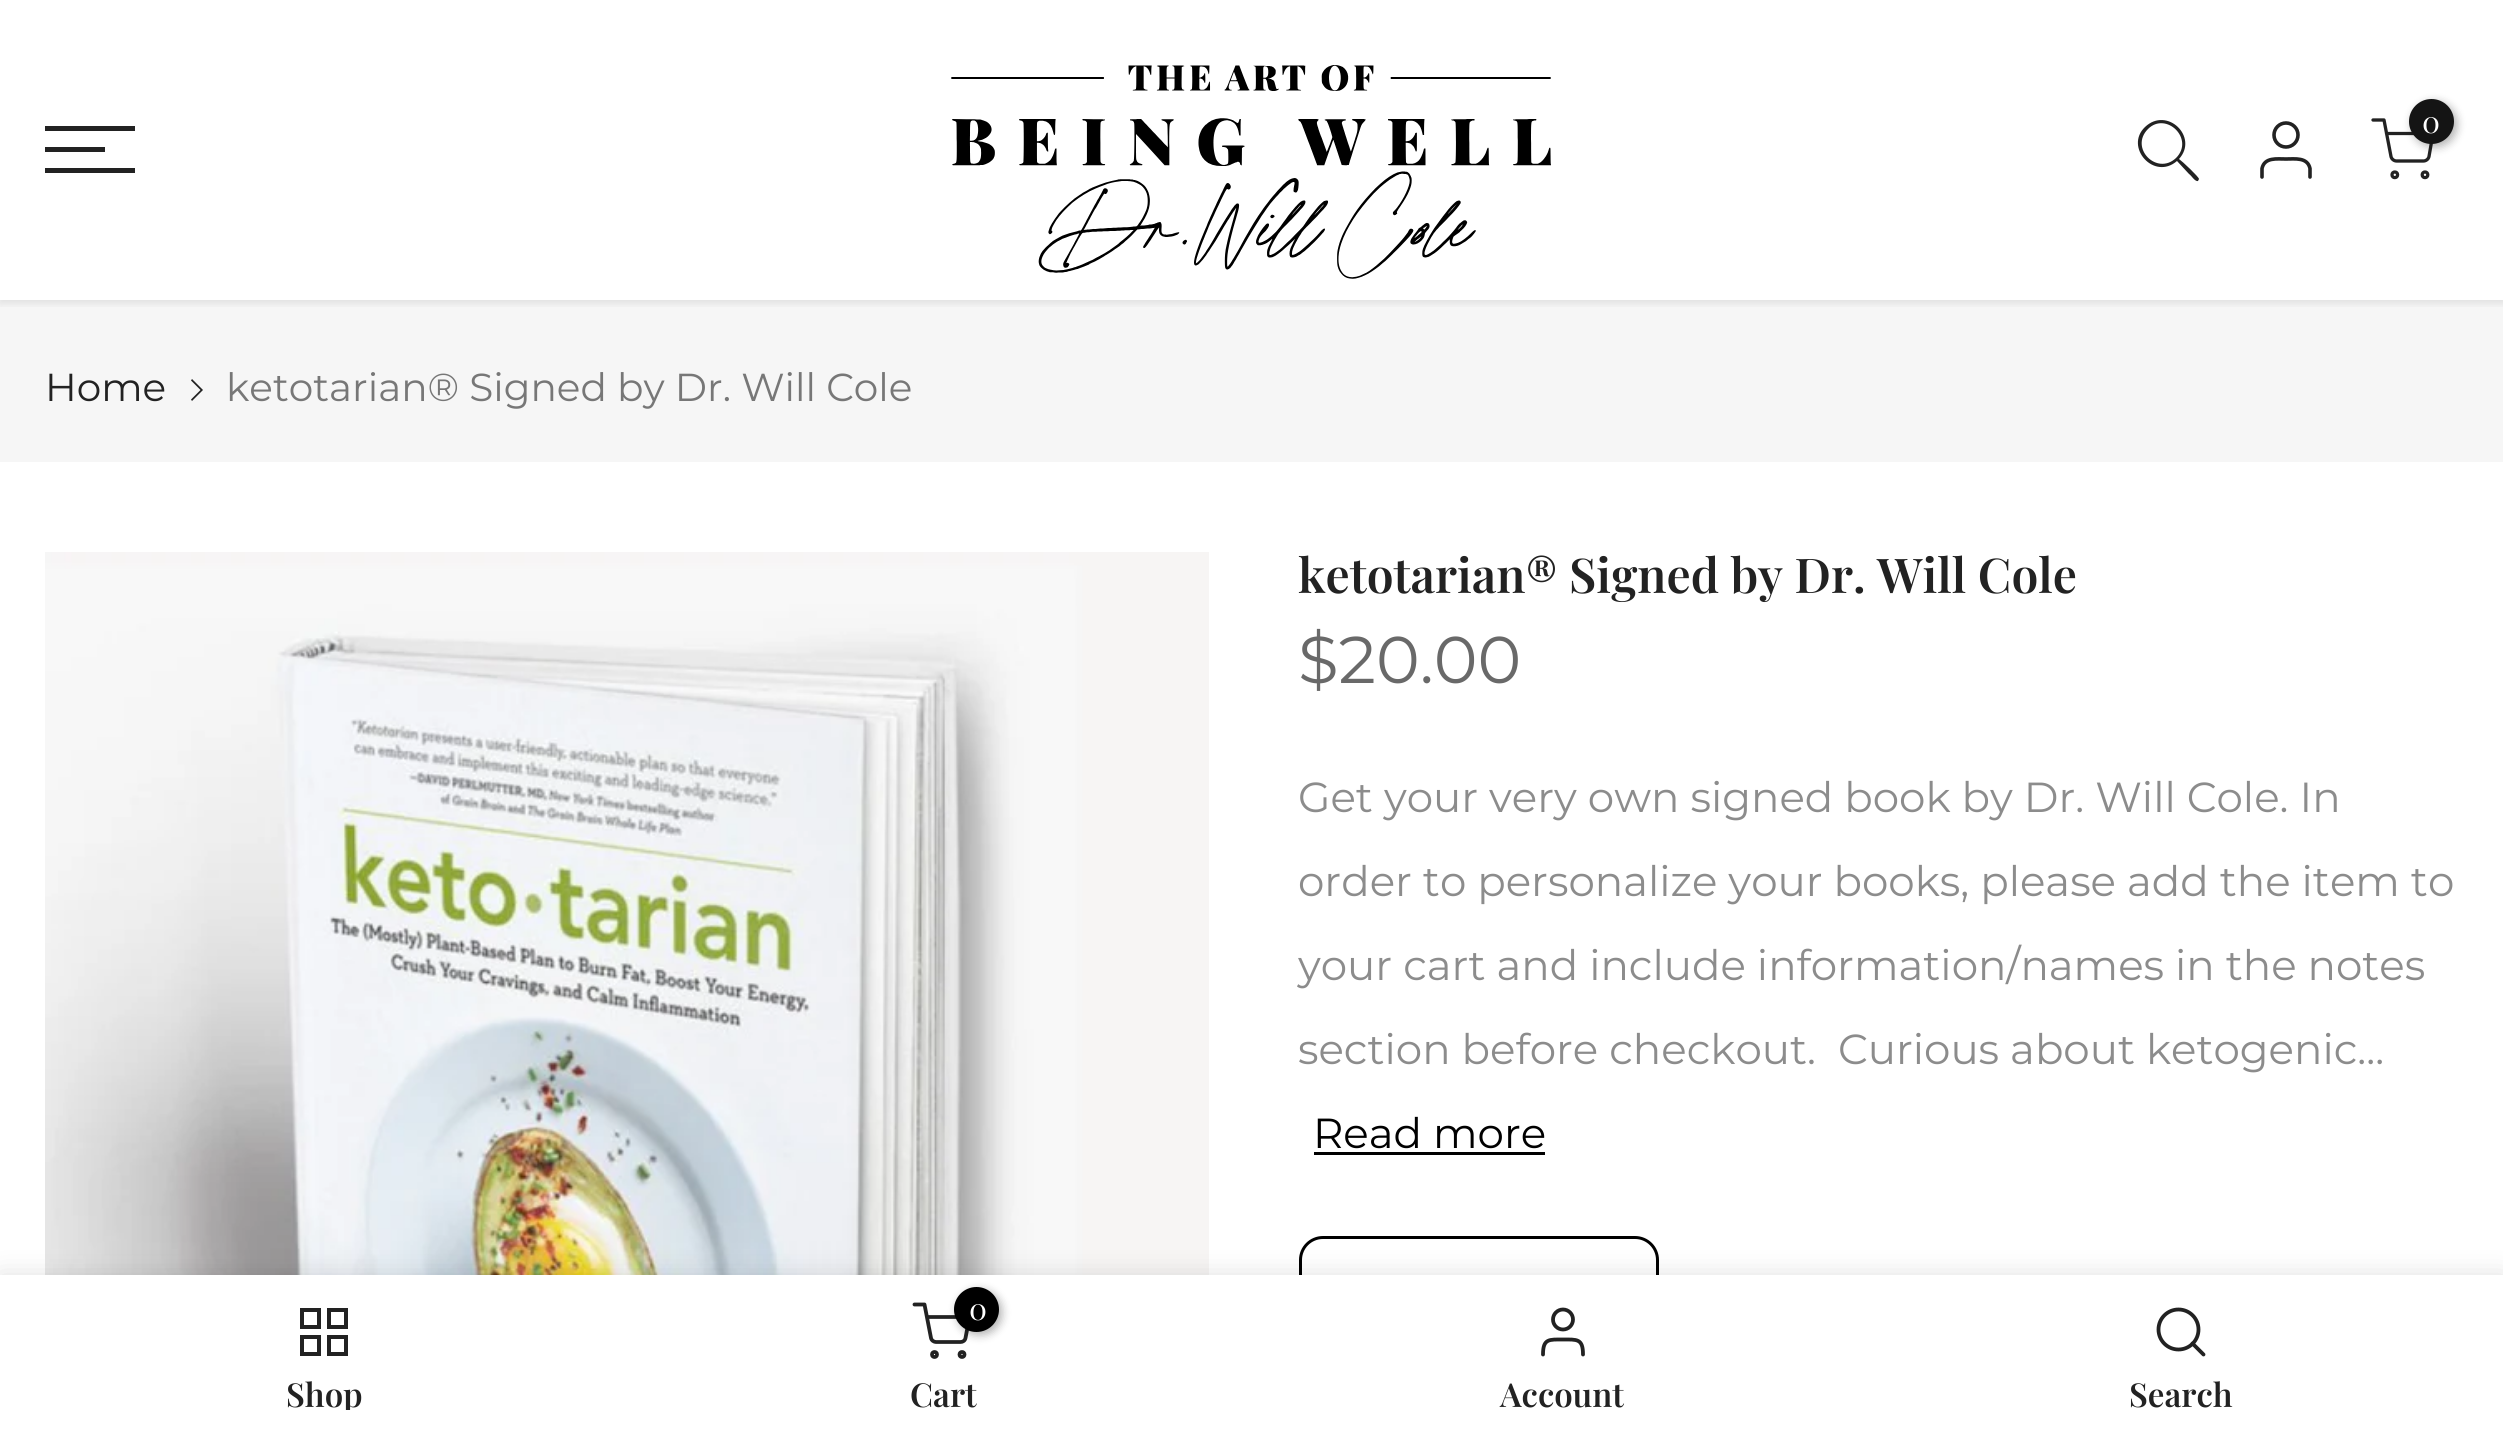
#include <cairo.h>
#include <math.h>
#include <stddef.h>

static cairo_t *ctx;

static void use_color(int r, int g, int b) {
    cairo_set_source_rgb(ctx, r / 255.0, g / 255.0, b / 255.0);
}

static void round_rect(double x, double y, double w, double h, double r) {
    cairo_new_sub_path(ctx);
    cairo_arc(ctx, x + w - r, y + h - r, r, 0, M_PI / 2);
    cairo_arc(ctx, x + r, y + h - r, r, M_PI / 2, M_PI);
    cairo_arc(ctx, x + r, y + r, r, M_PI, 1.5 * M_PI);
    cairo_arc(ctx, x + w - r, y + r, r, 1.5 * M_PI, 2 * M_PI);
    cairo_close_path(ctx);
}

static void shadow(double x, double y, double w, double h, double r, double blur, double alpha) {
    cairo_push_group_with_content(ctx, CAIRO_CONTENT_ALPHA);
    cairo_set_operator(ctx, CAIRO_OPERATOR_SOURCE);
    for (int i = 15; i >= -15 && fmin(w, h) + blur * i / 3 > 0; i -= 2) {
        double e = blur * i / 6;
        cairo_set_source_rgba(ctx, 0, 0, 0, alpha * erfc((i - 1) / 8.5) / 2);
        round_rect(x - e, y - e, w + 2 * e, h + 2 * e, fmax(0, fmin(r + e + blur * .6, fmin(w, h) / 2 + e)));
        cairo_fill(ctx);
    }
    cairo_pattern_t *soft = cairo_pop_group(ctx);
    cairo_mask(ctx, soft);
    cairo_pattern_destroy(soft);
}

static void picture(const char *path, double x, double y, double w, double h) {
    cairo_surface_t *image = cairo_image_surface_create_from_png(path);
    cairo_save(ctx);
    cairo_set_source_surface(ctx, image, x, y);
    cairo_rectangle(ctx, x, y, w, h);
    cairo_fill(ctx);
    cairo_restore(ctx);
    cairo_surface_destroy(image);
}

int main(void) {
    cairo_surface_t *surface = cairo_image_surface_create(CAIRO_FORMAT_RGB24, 2503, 1439);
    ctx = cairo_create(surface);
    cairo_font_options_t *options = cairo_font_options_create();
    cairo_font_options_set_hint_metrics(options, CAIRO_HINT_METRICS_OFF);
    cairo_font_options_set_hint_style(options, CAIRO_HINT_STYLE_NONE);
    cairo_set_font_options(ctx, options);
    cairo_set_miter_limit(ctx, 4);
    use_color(255, 255, 255);
    cairo_paint(ctx);
    use_color(246, 246, 246);
    cairo_rectangle(ctx, 0, 300, 2503, 162);
    cairo_fill(ctx);
    cairo_save(ctx);
    cairo_rectangle(ctx, 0, 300, 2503, 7);
    cairo_clip(ctx);
    use_color(0, 0, 0);
    shadow(0, 3, 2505, 300, 0, 4.5, 0.1);
    cairo_restore(ctx);
    use_color(34, 34, 34);
    cairo_rectangle(ctx, 45, 126, 90, 5);
    cairo_fill(ctx);
    cairo_rectangle(ctx, 45, 147, 60, 5);
    cairo_fill(ctx);
    cairo_rectangle(ctx, 45, 168, 90, 5);
    cairo_fill(ctx);
    picture("img1.png", 951, 65, 600, 214);
    cairo_set_fill_rule(ctx, CAIRO_FILL_RULE_EVEN_ODD);
    cairo_new_path(ctx);
    cairo_move_to(ctx, 2176, 158);
    cairo_curve_to(ctx, 2157, 176, 2129, 148, 2148, 129);
    cairo_curve_to(ctx, 2166, 111, 2195, 139, 2176, 158);
    cairo_close_path(ctx);
    cairo_move_to(ctx, 2177, 161);
    cairo_curve_to(ctx, 2154, 181, 2124, 147, 2145, 127);
    cairo_curve_to(ctx, 2167, 106, 2199, 137, 2179, 159);
    cairo_curve_to(ctx, 2182, 161, 2199, 177, 2199, 179);
    cairo_line_to(ctx, 2198, 181);
    cairo_curve_to(ctx, 2195, 182, 2191, 175, 2189, 174);
    cairo_close_path(ctx);
    cairo_fill(ctx);
    cairo_arc(ctx, 2286, 135, 12, 0, 2 * M_PI);
    cairo_set_line_width(ctx, 3.6);
    cairo_stroke(ctx);
    cairo_new_path(ctx);
    cairo_move_to(ctx, 2310, 177);
    cairo_line_to(ctx, 2310, 168.5);
    cairo_curve_to(ctx, 2307.5, 157, 2295, 159, 2286, 159);
    cairo_curve_to(ctx, 2277, 159, 2264.5, 157, 2262, 168.5);
    cairo_line_to(ctx, 2262, 177);
    cairo_set_line_cap(ctx, CAIRO_LINE_CAP_ROUND);
    cairo_set_line_join(ctx, CAIRO_LINE_JOIN_ROUND);
    cairo_stroke(ctx);
    cairo_new_path(ctx);
    cairo_move_to(ctx, 2373, 120);
    cairo_line_to(ctx, 2384, 120);
    cairo_line_to(ctx, 2391, 156.5);
    cairo_curve_to(ctx, 2391.5, 159, 2394, 161, 2396.5, 161);
    cairo_line_to(ctx, 2423.5, 161);
    cairo_curve_to(ctx, 2426, 161, 2428.5, 159, 2429, 156.5);
    cairo_line_to(ctx, 2433, 133.5);
    cairo_line_to(ctx, 2386.5, 133.5);
    cairo_set_line_width(ctx, 3.3);
    cairo_stroke(ctx);
    use_color(0, 0, 0);
    shadow(2412, 102, 45, 45, 22.5, 4.5, 0.3);
    use_color(20, 20, 20);
    cairo_arc(ctx, 2431.5, 121.5, 22.5, 0, 2 * M_PI);
    cairo_fill(ctx);
    cairo_select_font_face(ctx, "Playfair Display", CAIRO_FONT_SLANT_NORMAL, CAIRO_FONT_WEIGHT_NORMAL);
    cairo_set_font_size(ctx, 30);
    use_color(255, 255, 255);
    cairo_move_to(ctx, 2422, 133);
    cairo_show_text(ctx, "0");
    cairo_new_path(ctx);
    cairo_arc(ctx, 2394.8, 174.8, 2.8, 0, 2 * M_PI);
    use_color(34, 34, 34);
    cairo_set_line_cap(ctx, CAIRO_LINE_CAP_BUTT);
    cairo_set_line_join(ctx, CAIRO_LINE_JOIN_MITER);
    cairo_stroke(ctx);
    cairo_arc(ctx, 2425, 174.8, 2.8, 0, 2 * M_PI);
    cairo_stroke(ctx);
    cairo_select_font_face(ctx, "Montserrat", CAIRO_FONT_SLANT_NORMAL, CAIRO_FONT_WEIGHT_NORMAL);
    cairo_set_font_size(ctx, 39);
    cairo_move_to(ctx, 45, 401);
    cairo_show_text(ctx, "Home");
    cairo_set_fill_rule(ctx, CAIRO_FILL_RULE_WINDING);
    cairo_new_path(ctx);
    cairo_move_to(ctx, 192, 379);
    cairo_line_to(ctx, 191, 380.5);
    cairo_line_to(ctx, 200.5, 390);
    cairo_line_to(ctx, 191, 399.5);
    cairo_line_to(ctx, 192, 401);
    cairo_line_to(ctx, 203, 390);
    cairo_line_to(ctx, 202.5, 389.5);
    cairo_close_path(ctx);
    cairo_fill(ctx);
    use_color(119, 119, 119);
    cairo_move_to(ctx, 226, 401);
    cairo_show_text(ctx, "ketotarian® Signed by Dr. Will Cole");
    picture("img2.png", 45, 552, 1164, 723);
    cairo_select_font_face(ctx, "Playfair Display SemiBold", CAIRO_FONT_SLANT_NORMAL, CAIRO_FONT_WEIGHT_NORMAL);
    cairo_set_font_size(ctx, 48);
    use_color(34, 34, 34);
    cairo_move_to(ctx, 1298, 593);
    cairo_show_text(ctx, "ketotarian® Signed by Dr. Will Cole");
    cairo_select_font_face(ctx, "Montserrat", CAIRO_FONT_SLANT_NORMAL, CAIRO_FONT_WEIGHT_NORMAL);
    cairo_set_font_size(ctx, 66);
    use_color(105, 105, 105);
    cairo_move_to(ctx, 1298, 683);
    cairo_show_text(ctx, "$20.00");
    cairo_set_font_size(ctx, 42);
    use_color(140, 140, 140);
    cairo_move_to(ctx, 1298, 812);
    cairo_show_text(ctx, "Get your very own signed book by Dr. Will Cole. In");
    cairo_move_to(ctx, 1298, 896);
    cairo_show_text(ctx, "order to personalize your books, please add the item to");
    cairo_move_to(ctx, 1298, 980);
    cairo_show_text(ctx, "your cart and include information/names in the notes");
    cairo_move_to(ctx, 1298, 1064);
    cairo_show_text(ctx, "section before checkout.  Curious about ketogenic...");
    use_color(0, 0, 0);
    cairo_move_to(ctx, 1313, 1148);
    cairo_show_text(ctx, "Read more");
    cairo_rectangle(ctx, 1314, 1152, 231, 3);
    cairo_fill(ctx);
    round_rect(1300.5, 1237.5, 357, 117, 22.5);
    cairo_set_line_width(ctx, 3);
    cairo_stroke(ctx);
    use_color(0, 0, 0);
    shadow(0, 1275, 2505, 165, 0, 13.5, 0.12);
    use_color(255, 255, 255);
    cairo_rectangle(ctx, 0, 1275, 2503, 164);
    cairo_fill(ctx);
    cairo_rectangle(ctx, 302, 1310, 17, 17);
    use_color(34, 34, 34);
    cairo_set_line_width(ctx, 4);
    cairo_stroke(ctx);
    cairo_rectangle(ctx, 329, 1310, 17, 17);
    cairo_stroke(ctx);
    cairo_rectangle(ctx, 302, 1337, 17, 17);
    cairo_stroke(ctx);
    cairo_rectangle(ctx, 329, 1337, 17, 17);
    cairo_stroke(ctx);
    cairo_save(ctx);
    cairo_rectangle(ctx, 45, 1377, 558, 33);
    cairo_clip(ctx);
    cairo_select_font_face(ctx, "Playfair Display SemiBold", CAIRO_FONT_SLANT_NORMAL, CAIRO_FONT_WEIGHT_NORMAL);
    cairo_set_font_size(ctx, 33);
    cairo_move_to(ctx, 286, 1407);
    cairo_show_text(ctx, "Shop");
    cairo_restore(ctx);
    cairo_new_path(ctx);
    cairo_move_to(ctx, 914.5, 1304.5);
    cairo_line_to(ctx, 924.5, 1304.5);
    cairo_line_to(ctx, 931, 1338);
    cairo_curve_to(ctx, 931.5, 1340.5, 934, 1342, 936, 1342);
    cairo_line_to(ctx, 960.5, 1342);
    cairo_curve_to(ctx, 963, 1342, 965, 1340.5, 965.5, 1338);
    cairo_line_to(ctx, 969.5, 1317);
    cairo_line_to(ctx, 927, 1317);
    cairo_set_line_width(ctx, 3.8);
    cairo_set_line_cap(ctx, CAIRO_LINE_CAP_ROUND);
    cairo_set_line_join(ctx, CAIRO_LINE_JOIN_ROUND);
    cairo_stroke(ctx);
    use_color(0, 0, 0);
    shadow(957, 1290, 45, 45, 22.5, 4.5, 0.3);
    use_color(0, 0, 0);
    cairo_arc(ctx, 976.5, 1309.5, 22.5, 0, 2 * M_PI);
    cairo_fill(ctx);
    cairo_select_font_face(ctx, "Playfair Display", CAIRO_FONT_SLANT_NORMAL, CAIRO_FONT_WEIGHT_NORMAL);
    cairo_set_font_size(ctx, 30);
    use_color(255, 255, 255);
    cairo_move_to(ctx, 969, 1320);
    cairo_show_text(ctx, "0");
    cairo_new_path(ctx);
    cairo_arc(ctx, 934.5, 1354.5, 2.5, 0, 2 * M_PI);
    use_color(34, 34, 34);
    cairo_set_line_cap(ctx, CAIRO_LINE_CAP_BUTT);
    cairo_set_line_join(ctx, CAIRO_LINE_JOIN_MITER);
    cairo_stroke(ctx);
    cairo_arc(ctx, 962, 1354.5, 2.5, 0, 2 * M_PI);
    cairo_stroke(ctx);
    cairo_select_font_face(ctx, "Playfair Display SemiBold", CAIRO_FONT_SLANT_NORMAL, CAIRO_FONT_WEIGHT_NORMAL);
    cairo_set_font_size(ctx, 33);
    cairo_move_to(ctx, 910, 1407);
    cairo_show_text(ctx, "Cart");
    cairo_new_path(ctx);
    cairo_arc(ctx, 1563, 1319.5, 10, 0, 2 * M_PI);
    cairo_stroke(ctx);
    cairo_new_path(ctx);
    cairo_move_to(ctx, 1583, 1354.5);
    cairo_curve_to(ctx, 1583, 1338.5, 1577, 1339.5, 1563, 1339.5);
    cairo_curve_to(ctx, 1549, 1339.5, 1543, 1338.5, 1543, 1354.5);
    cairo_set_line_cap(ctx, CAIRO_LINE_CAP_ROUND);
    cairo_set_line_join(ctx, CAIRO_LINE_JOIN_ROUND);
    cairo_stroke(ctx);
    cairo_move_to(ctx, 1500, 1407);
    cairo_show_text(ctx, "Account");
    cairo_new_path(ctx);
    cairo_arc(ctx, 2178.5, 1329.5, 20, 0, 2 * M_PI);
    cairo_set_line_cap(ctx, CAIRO_LINE_CAP_BUTT);
    cairo_set_line_join(ctx, CAIRO_LINE_JOIN_MITER);
    cairo_stroke(ctx);
    cairo_new_path(ctx);
    cairo_move_to(ctx, 2203.5, 1354.5);
    cairo_line_to(ctx, 2192.5, 1343.5);
    cairo_set_line_cap(ctx, CAIRO_LINE_CAP_ROUND);
    cairo_set_line_join(ctx, CAIRO_LINE_JOIN_ROUND);
    cairo_stroke(ctx);
    cairo_move_to(ctx, 2129, 1407);
    cairo_show_text(ctx, "Search");
    cairo_surface_write_to_png(surface, "result.png");
    cairo_font_options_destroy(options);
    cairo_destroy(ctx);
    cairo_surface_destroy(surface);
    return 0;
}
